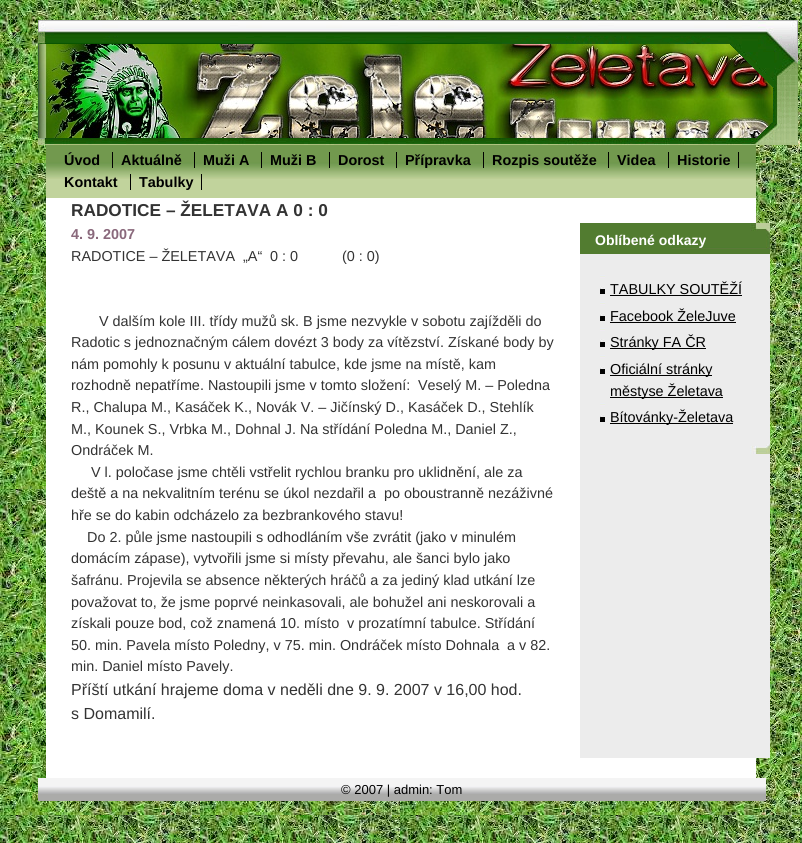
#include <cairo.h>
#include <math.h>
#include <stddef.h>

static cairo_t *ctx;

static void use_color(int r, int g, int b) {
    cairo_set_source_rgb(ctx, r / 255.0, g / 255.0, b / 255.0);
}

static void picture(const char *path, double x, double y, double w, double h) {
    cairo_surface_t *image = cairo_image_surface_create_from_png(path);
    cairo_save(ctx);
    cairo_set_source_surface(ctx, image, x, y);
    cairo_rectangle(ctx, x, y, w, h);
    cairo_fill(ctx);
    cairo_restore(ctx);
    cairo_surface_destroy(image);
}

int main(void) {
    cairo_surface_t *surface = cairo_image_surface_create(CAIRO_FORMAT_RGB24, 802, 843);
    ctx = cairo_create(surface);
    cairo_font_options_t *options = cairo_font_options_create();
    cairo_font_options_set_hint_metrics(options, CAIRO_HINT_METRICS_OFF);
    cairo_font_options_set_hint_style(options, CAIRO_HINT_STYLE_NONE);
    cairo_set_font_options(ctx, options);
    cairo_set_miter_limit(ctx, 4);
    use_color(255, 255, 255);
    cairo_paint(ctx);
    picture("img1.png", 0, 0, 802, 843);
    use_color(255, 255, 255);
    cairo_rectangle(ctx, 46, 198, 710, 580);
    cairo_fill(ctx);
    picture("img2.png", 39, 44, 734, 94);
    picture("img3.png", 38, 20, 760, 125);
    use_color(193, 211, 156);
    cairo_rectangle(ctx, 46, 179, 710, 19);
    cairo_fill(ctx);
    picture("img4.png", 46, 145, 710, 34);
    cairo_select_font_face(ctx, "Liberation Sans", CAIRO_FONT_SLANT_NORMAL, CAIRO_FONT_WEIGHT_BOLD);
    cairo_set_font_size(ctx, 14.4);
    use_color(0, 0, 0);
    cairo_move_to(ctx, 64, 165);
    cairo_show_text(ctx, "Úvod");
    cairo_rectangle(ctx, 112, 152, 1, 16);
    cairo_fill(ctx);
    cairo_move_to(ctx, 121, 165);
    cairo_show_text(ctx, "Aktuálně");
    cairo_rectangle(ctx, 194, 152, 1, 16);
    cairo_fill(ctx);
    cairo_move_to(ctx, 203, 165);
    cairo_show_text(ctx, "Muži A");
    cairo_rectangle(ctx, 261, 152, 1, 16);
    cairo_fill(ctx);
    cairo_move_to(ctx, 270, 165);
    cairo_show_text(ctx, "Muži B");
    cairo_rectangle(ctx, 329, 152, 1, 16);
    cairo_fill(ctx);
    cairo_move_to(ctx, 338, 165);
    cairo_show_text(ctx, "Dorost");
    cairo_rectangle(ctx, 396, 152, 1, 16);
    cairo_fill(ctx);
    cairo_move_to(ctx, 405, 165);
    cairo_show_text(ctx, "Přípravka");
    cairo_rectangle(ctx, 483, 152, 1, 16);
    cairo_fill(ctx);
    cairo_move_to(ctx, 492, 165);
    cairo_show_text(ctx, "Rozpis soutěže");
    cairo_rectangle(ctx, 608, 152, 1, 16);
    cairo_fill(ctx);
    cairo_move_to(ctx, 617, 165);
    cairo_show_text(ctx, "Videa");
    cairo_rectangle(ctx, 668, 152, 1, 16);
    cairo_fill(ctx);
    cairo_move_to(ctx, 677, 165);
    cairo_show_text(ctx, "Historie");
    cairo_rectangle(ctx, 738, 152, 1, 16);
    cairo_fill(ctx);
    cairo_move_to(ctx, 64, 187);
    cairo_show_text(ctx, "Kontakt");
    cairo_rectangle(ctx, 130, 174, 1, 16);
    cairo_fill(ctx);
    cairo_move_to(ctx, 139, 187);
    cairo_show_text(ctx, "Tabulky");
    cairo_rectangle(ctx, 201, 174, 1, 16);
    cairo_fill(ctx);
    use_color(236, 236, 236);
    cairo_rectangle(ctx, 580, 254, 190, 504);
    cairo_fill(ctx);
    use_color(82, 124, 48);
    cairo_rectangle(ctx, 580, 223, 190, 31);
    cairo_fill(ctx);
    picture("img5.png", 672, 223, 98, 26);
    cairo_set_font_size(ctx, 14);
    use_color(255, 255, 255);
    cairo_move_to(ctx, 595, 245);
    cairo_show_text(ctx, "Oblíbené odkazy");
    picture("img6.png", 750, 444, 20, 10);
    picture("img7.png", 600, 275, 5, 19);
    cairo_select_font_face(ctx, "Liberation Sans", CAIRO_FONT_SLANT_NORMAL, CAIRO_FONT_WEIGHT_NORMAL);
    cairo_set_font_size(ctx, 14.4);
    use_color(0, 0, 0);
    cairo_move_to(ctx, 610, 294);
    cairo_show_text(ctx, "TABULKY SOUTĚŽÍ");
    cairo_rectangle(ctx, 610, 295, 132, 1);
    cairo_fill(ctx);
    picture("img7.png", 600, 302, 5, 19);
    cairo_move_to(ctx, 610, 321);
    cairo_show_text(ctx, "Facebook ŽeleJuve");
    cairo_rectangle(ctx, 610, 322, 126, 1);
    cairo_fill(ctx);
    picture("img7.png", 600, 328, 5, 19);
    cairo_rectangle(ctx, 610, 348, 96, 1);
    cairo_fill(ctx);
    cairo_move_to(ctx, 610, 347);
    cairo_show_text(ctx, "Stránky FA ČR");
    picture("img7.png", 600, 355, 5, 19);
    cairo_rectangle(ctx, 610, 375, 102, 1);
    cairo_fill(ctx);
    cairo_move_to(ctx, 610, 374);
    cairo_show_text(ctx, "Oficiální stránky");
    cairo_rectangle(ctx, 610, 397, 113, 1);
    cairo_fill(ctx);
    cairo_move_to(ctx, 610, 396);
    cairo_show_text(ctx, "městyse Želetava");
    picture("img7.png", 600, 403, 5, 19);
    cairo_rectangle(ctx, 610, 423, 123, 1);
    cairo_fill(ctx);
    cairo_move_to(ctx, 610, 422);
    cairo_show_text(ctx, "Bítovánky-Želetava");
    cairo_select_font_face(ctx, "Liberation Sans", CAIRO_FONT_SLANT_NORMAL, CAIRO_FONT_WEIGHT_BOLD);
    cairo_set_font_size(ctx, 17.25);
    use_color(51, 51, 51);
    cairo_move_to(ctx, 71, 216);
    cairo_show_text(ctx, "RADOTICE – ŽELETAVA A 0 : 0");
    cairo_set_font_size(ctx, 14.4);
    use_color(138, 105, 124);
    cairo_move_to(ctx, 71, 239);
    cairo_show_text(ctx, "4. 9. 2007");
    cairo_select_font_face(ctx, "Liberation Sans", CAIRO_FONT_SLANT_NORMAL, CAIRO_FONT_WEIGHT_NORMAL);
    use_color(51, 51, 51);
    cairo_move_to(ctx, 71, 261);
    cairo_show_text(ctx, "RADOTICE – ŽELETAVA");
    cairo_move_to(ctx, 243, 261);
    cairo_show_text(ctx, "„A“");
    cairo_move_to(ctx, 270, 261);
    cairo_show_text(ctx, "0 : 0");
    cairo_move_to(ctx, 342, 261);
    cairo_show_text(ctx, "(0 : 0)");
    cairo_move_to(ctx, 99, 326);
    cairo_show_text(ctx, "V dalším kole III. třídy mužů sk. B jsme nezvykle v sobotu zajížděli do");
    cairo_move_to(ctx, 71, 347);
    cairo_show_text(ctx, "Radotic s jednoznačným cálem dovézt 3 body za vítězství. Získané body by");
    cairo_move_to(ctx, 71, 369);
    cairo_show_text(ctx, "nám pomohly k posunu v aktuální tabulce, kde jsme na místě, kam");
    cairo_move_to(ctx, 71, 390);
    cairo_show_text(ctx, "rozhodně nepatříme. Nastoupili jsme v tomto složení:");
    cairo_move_to(ctx, 418, 390);
    cairo_show_text(ctx, "Veselý M. – Poledna");
    cairo_move_to(ctx, 71, 412);
    cairo_show_text(ctx, "R., Chalupa M., Kasáček K., Novák V. – Jičínský D., Kasáček D., Stehlík");
    cairo_move_to(ctx, 71, 434);
    cairo_show_text(ctx, "M., Kounek S., Vrbka M., Dohnal J. Na střídání Poledna M., Daniel Z.,");
    cairo_move_to(ctx, 71, 455);
    cairo_show_text(ctx, "Ondráček M.");
    cairo_move_to(ctx, 91, 477);
    cairo_show_text(ctx, "V l. poločase jsme chtěli vstřelit rychlou branku pro uklidnění, ale za");
    cairo_move_to(ctx, 71, 498);
    cairo_show_text(ctx, "deště a na nekvalitním terénu se úkol nezdařil a");
    cairo_move_to(ctx, 384, 498);
    cairo_show_text(ctx, "po oboustranně nezáživné");
    cairo_move_to(ctx, 71, 520);
    cairo_show_text(ctx, "hře se do kabin odcházelo za bezbrankového stavu!");
    cairo_move_to(ctx, 87, 542);
    cairo_show_text(ctx, "Do 2. půle jsme nastoupili s odhodláním vše zvrátit (jako v minulém");
    cairo_move_to(ctx, 71, 563);
    cairo_show_text(ctx, "domácím zápase), vytvořili jsme si místy převahu, ale šanci bylo jako");
    cairo_move_to(ctx, 71, 585);
    cairo_show_text(ctx, "šafránu. Projevila se absence některých hráčů a za jediný klad utkání lze");
    cairo_move_to(ctx, 71, 607);
    cairo_show_text(ctx, "považovat to, že jsme poprvé neinkasovali, ale bohužel ani neskorovali a");
    cairo_move_to(ctx, 71, 628);
    cairo_show_text(ctx, "získali pouze bod, což znamená 10. místo");
    cairo_move_to(ctx, 347, 628);
    cairo_show_text(ctx, "v prozatímní tabulce. Střídání");
    cairo_move_to(ctx, 71, 650);
    cairo_show_text(ctx, "50. min. Pavela místo Poledny, v 75. min. Ondráček místo Dohnala");
    cairo_move_to(ctx, 507, 650);
    cairo_show_text(ctx, "a v 82.");
    cairo_move_to(ctx, 71, 671);
    cairo_show_text(ctx, "min. Daniel místo Pavely.");
    cairo_set_font_size(ctx, 16);
    cairo_move_to(ctx, 71, 695);
    cairo_show_text(ctx, "Příští utkání hrajeme doma v neděli dne 9. 9. 2007 v 16,00 hod.");
    cairo_move_to(ctx, 71, 719);
    cairo_show_text(ctx, "s Domamilí.");
    picture("img8.png", 38, 778, 728, 23);
    cairo_set_font_size(ctx, 13);
    use_color(0, 0, 0);
    cairo_move_to(ctx, 341, 794);
    cairo_show_text(ctx, "© 2007 | admin: Tom");
    cairo_surface_write_to_png(surface, "result.png");
    cairo_font_options_destroy(options);
    cairo_destroy(ctx);
    cairo_surface_destroy(surface);
    return 0;
}
